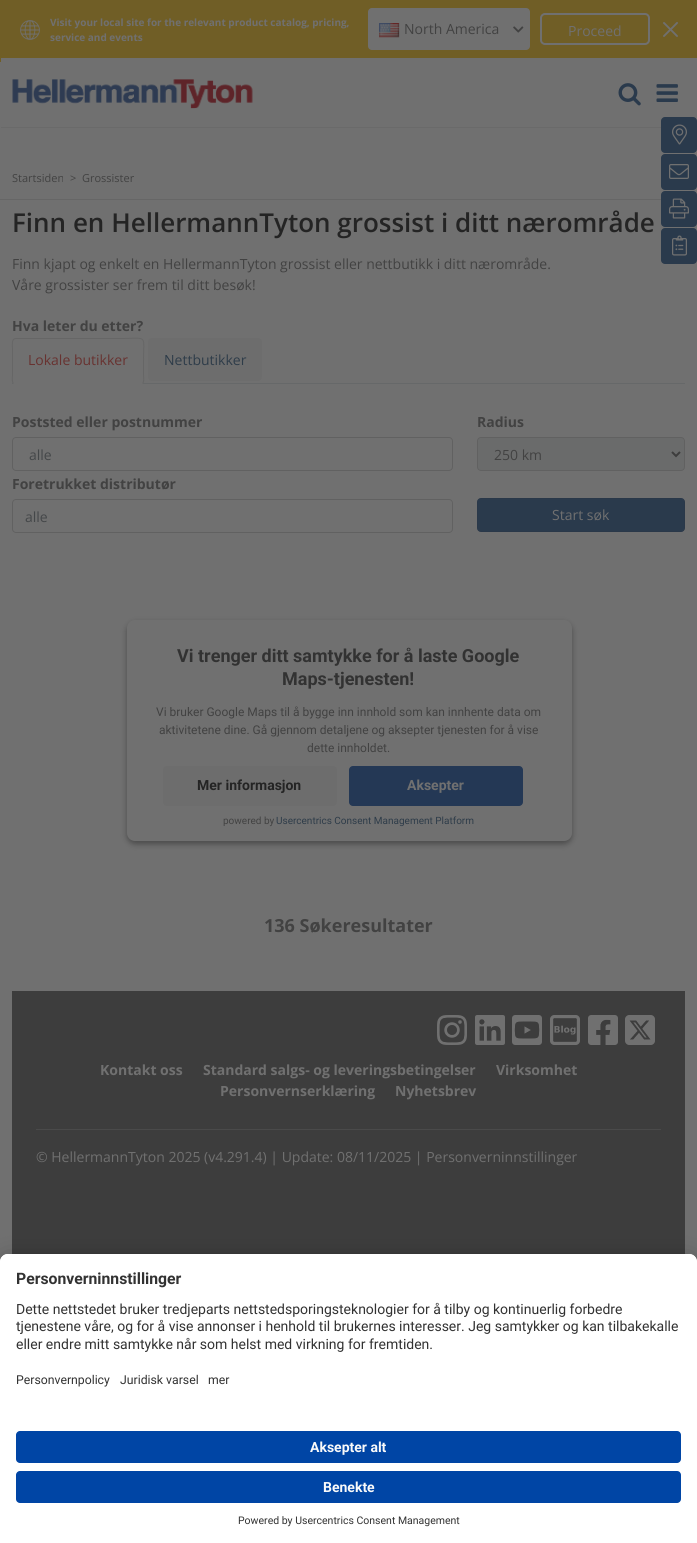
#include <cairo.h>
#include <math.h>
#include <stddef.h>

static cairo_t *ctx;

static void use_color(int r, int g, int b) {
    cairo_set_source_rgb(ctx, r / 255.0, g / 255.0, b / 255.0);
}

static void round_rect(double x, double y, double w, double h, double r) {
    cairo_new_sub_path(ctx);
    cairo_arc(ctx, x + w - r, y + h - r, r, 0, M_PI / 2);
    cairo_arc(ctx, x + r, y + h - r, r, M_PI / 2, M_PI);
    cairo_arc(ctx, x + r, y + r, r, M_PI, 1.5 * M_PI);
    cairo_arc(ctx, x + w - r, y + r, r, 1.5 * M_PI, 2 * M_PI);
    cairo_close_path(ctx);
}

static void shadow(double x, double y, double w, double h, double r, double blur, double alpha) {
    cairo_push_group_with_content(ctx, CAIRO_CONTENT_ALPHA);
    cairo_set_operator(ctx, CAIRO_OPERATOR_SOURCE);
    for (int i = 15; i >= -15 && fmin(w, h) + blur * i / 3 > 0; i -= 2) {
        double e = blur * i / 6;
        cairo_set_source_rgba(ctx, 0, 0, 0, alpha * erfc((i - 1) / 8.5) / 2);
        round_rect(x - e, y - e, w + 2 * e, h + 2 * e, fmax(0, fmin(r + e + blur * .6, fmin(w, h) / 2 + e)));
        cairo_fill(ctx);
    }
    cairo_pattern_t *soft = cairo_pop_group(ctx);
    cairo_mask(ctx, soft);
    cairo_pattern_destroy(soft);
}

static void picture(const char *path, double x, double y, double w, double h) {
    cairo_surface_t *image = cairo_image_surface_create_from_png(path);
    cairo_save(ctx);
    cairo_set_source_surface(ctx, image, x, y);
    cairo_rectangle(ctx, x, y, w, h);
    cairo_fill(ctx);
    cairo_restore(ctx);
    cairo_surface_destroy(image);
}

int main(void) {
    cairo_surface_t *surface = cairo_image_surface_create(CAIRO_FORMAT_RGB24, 697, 1543);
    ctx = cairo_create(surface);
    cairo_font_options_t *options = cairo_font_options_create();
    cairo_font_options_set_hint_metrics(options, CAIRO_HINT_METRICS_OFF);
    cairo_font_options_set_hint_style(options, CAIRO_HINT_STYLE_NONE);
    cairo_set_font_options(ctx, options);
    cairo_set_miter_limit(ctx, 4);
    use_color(112, 112, 112);
    cairo_paint(ctx);
    use_color(112, 94, 38);
    cairo_rectangle(ctx, 0, 0, 697, 62);
    cairo_fill(ctx);
    picture("img1.png", 20, 20, 20, 20);
    cairo_select_font_face(ctx, "Open Sans", CAIRO_FONT_SLANT_NORMAL, CAIRO_FONT_WEIGHT_BOLD);
    cairo_set_font_size(ctx, 10);
    use_color(112, 112, 112);
    cairo_move_to(ctx, 50, 26);
    cairo_show_text(ctx, "Visit your local site for the relevant product catalog, pricing,");
    cairo_move_to(ctx, 50, 41);
    cairo_show_text(ctx, "service and events");
    round_rect(368, 8, 162, 42, 4);
    cairo_fill(ctx);
    picture("img2.png", 379, 23, 21, 15);
    cairo_select_font_face(ctx, "Open Sans", CAIRO_FONT_SLANT_NORMAL, CAIRO_FONT_WEIGHT_NORMAL);
    cairo_set_font_size(ctx, 14);
    use_color(66, 66, 66);
    cairo_move_to(ctx, 404, 34);
    cairo_show_text(ctx, "North America");
    picture("img3.png", 513, 26, 11, 7);
    round_rect(541, 14, 108, 30, 4);
    use_color(112, 112, 112);
    cairo_stroke(ctx);
    cairo_move_to(ctx, 568, 36);
    cairo_show_text(ctx, "Proceed");
    picture("img4.png", 663, 22, 15, 15);
    cairo_rectangle(ctx, 1, 58, 696, 4);
    cairo_fill(ctx);
    use_color(106, 106, 106);
    cairo_rectangle(ctx, 1, 127, 660, 1);
    cairo_fill(ctx);
    picture("img5.png", 12, 79, 241, 30);
    picture("img6.png", 618, 83, 23, 23);
    picture("img7.png", 656, 84, 22, 18);
    use_color(102, 102, 102);
    cairo_rectangle(ctx, 0, 199, 661, 1);
    cairo_fill(ctx);
    cairo_set_font_size(ctx, 11);
    use_color(66, 66, 66);
    cairo_move_to(ctx, 12, 182);
    cairo_show_text(ctx, "Startsiden");
    cairo_move_to(ctx, 70, 182);
    cairo_show_text(ctx, ">");
    cairo_move_to(ctx, 82, 182);
    cairo_show_text(ctx, "Grossister");
    use_color(42, 58, 76);
    round_rect(661, 117, 36, 36, 4);
    cairo_fill(ctx);
    picture("img8.png", 672, 124, 15, 21);
    round_rect(661, 154, 36, 36, 4);
    cairo_fill(ctx);
    picture("img9.png", 669, 164, 20, 15);
    round_rect(661, 191, 36, 36, 4);
    cairo_fill(ctx);
    picture("img10.png", 669, 198, 20, 21);
    round_rect(661, 228, 36, 36, 4);
    cairo_fill(ctx);
    picture("img11.png", 672, 235, 15, 21);
    cairo_select_font_face(ctx, "Open Sans SemiBold", CAIRO_FONT_SLANT_NORMAL, CAIRO_FONT_WEIGHT_NORMAL);
    cairo_set_font_size(ctx, 26);
    use_color(36, 36, 36);
    cairo_move_to(ctx, 12, 232);
    cairo_show_text(ctx, "Finn en HellermannTyton grossist i ditt nærområde");
    cairo_select_font_face(ctx, "Open Sans", CAIRO_FONT_SLANT_NORMAL, CAIRO_FONT_WEIGHT_NORMAL);
    cairo_set_font_size(ctx, 14);
    use_color(66, 66, 66);
    cairo_move_to(ctx, 12, 269);
    cairo_show_text(ctx, "Finn kjapt og enkelt en HellermannTyton grossist eller nettbutikk i ditt nærområde.");
    cairo_move_to(ctx, 12, 290);
    cairo_show_text(ctx, "Våre grossister ser frem til ditt besøk!");
    cairo_select_font_face(ctx, "Open Sans", CAIRO_FONT_SLANT_NORMAL, CAIRO_FONT_WEIGHT_BOLD);
    cairo_move_to(ctx, 12, 331);
    cairo_show_text(ctx, "Hva leter du etter?");
    use_color(102, 104, 105);
    cairo_rectangle(ctx, 12, 383, 673, 1);
    cairo_fill(ctx);
    use_color(112, 112, 112);
    round_rect(12, 338, 132, 47, 4);
    cairo_fill(ctx);
    cairo_new_path(ctx);
    cairo_move_to(ctx, 13.5, 383.5);
    cairo_curve_to(ctx, 11.5, 381.5, 12.5, 376, 12.5, 374.5);
    cairo_line_to(ctx, 12.5, 348.5);
    cairo_curve_to(ctx, 12.5, 346, 11, 338.5, 16, 338.5);
    cairo_line_to(ctx, 119.5, 338.5);
    cairo_curve_to(ctx, 148.5, 338.5, 143.5, 333.5, 143.5, 361.5);
    cairo_line_to(ctx, 143.5, 374.5);
    cairo_curve_to(ctx, 143.5, 376, 144.5, 381.5, 142.5, 383.5);
    use_color(102, 102, 102);
    cairo_set_line_width(ctx, 1);
    cairo_stroke(ctx);
    cairo_select_font_face(ctx, "Open Sans", CAIRO_FONT_SLANT_NORMAL, CAIRO_FONT_WEIGHT_NORMAL);
    use_color(104, 50, 48);
    cairo_move_to(ctx, 28, 365);
    cairo_show_text(ctx, "Lokale butikker");
    use_color(109, 109, 109);
    round_rect(148, 338, 114, 43, 4);
    cairo_fill(ctx);
    use_color(46, 60, 73);
    cairo_move_to(ctx, 164, 365);
    cairo_show_text(ctx, "Nettbutikker");
    cairo_select_font_face(ctx, "Open Sans", CAIRO_FONT_SLANT_NORMAL, CAIRO_FONT_WEIGHT_BOLD);
    use_color(66, 66, 66);
    cairo_move_to(ctx, 12, 427);
    cairo_show_text(ctx, "Poststed eller postnummer");
    round_rect(12.5, 437.5, 440, 33, 3.5);
    use_color(97, 97, 97);
    cairo_stroke(ctx);
    cairo_select_font_face(ctx, "Open Sans", CAIRO_FONT_SLANT_NORMAL, CAIRO_FONT_WEIGHT_NORMAL);
    use_color(68, 71, 73);
    cairo_move_to(ctx, 29, 460);
    cairo_show_text(ctx, "alle");
    cairo_select_font_face(ctx, "Open Sans", CAIRO_FONT_SLANT_NORMAL, CAIRO_FONT_WEIGHT_BOLD);
    use_color(66, 66, 66);
    cairo_move_to(ctx, 477, 427);
    cairo_show_text(ctx, "Radius");
    use_color(106, 107, 107);
    round_rect(477.5, 437.5, 207, 33, 3.5);
    cairo_fill_preserve(ctx);
    use_color(97, 97, 97);
    cairo_stroke(ctx);
    cairo_new_path(ctx);
    cairo_move_to(ctx, 672, 452);
    cairo_line_to(ctx, 676, 456);
    cairo_line_to(ctx, 680, 452);
    use_color(61, 61, 61);
    cairo_set_line_width(ctx, 2);
    cairo_stroke(ctx);
    cairo_select_font_face(ctx, "Open Sans", CAIRO_FONT_SLANT_NORMAL, CAIRO_FONT_WEIGHT_NORMAL);
    use_color(66, 66, 66);
    cairo_move_to(ctx, 494, 460);
    cairo_show_text(ctx, "250 km");
    cairo_select_font_face(ctx, "Open Sans", CAIRO_FONT_SLANT_NORMAL, CAIRO_FONT_WEIGHT_BOLD);
    cairo_move_to(ctx, 12, 489);
    cairo_show_text(ctx, "Foretrukket distributør");
    round_rect(12.5, 499.5, 440, 33, 3.5);
    use_color(97, 97, 97);
    cairo_set_line_width(ctx, 1);
    cairo_stroke(ctx);
    cairo_select_font_face(ctx, "Open Sans", CAIRO_FONT_SLANT_NORMAL, CAIRO_FONT_WEIGHT_NORMAL);
    use_color(68, 71, 73);
    cairo_move_to(ctx, 25, 522);
    cairo_show_text(ctx, "alle");
    use_color(42, 58, 76);
    round_rect(477.5, 498.5, 207, 33, 3.5);
    cairo_fill_preserve(ctx);
    use_color(42, 56, 73);
    cairo_stroke(ctx);
    use_color(112, 112, 112);
    cairo_move_to(ctx, 552, 520);
    cairo_show_text(ctx, "Start søk");
    use_color(36, 36, 36);
    shadow(127, 623, 445, 221, 8, 3, 0.5);
    use_color(112, 112, 112);
    round_rect(127, 620, 445, 221, 8);
    cairo_fill(ctx);
    cairo_select_font_face(ctx, "Roboto", CAIRO_FONT_SLANT_NORMAL, CAIRO_FONT_WEIGHT_BOLD);
    cairo_set_font_size(ctx, 18);
    use_color(50, 50, 50);
    cairo_move_to(ctx, 177, 662);
    cairo_show_text(ctx, "Vi trenger ditt samtykke for å laste Google");
    cairo_move_to(ctx, 282, 685);
    cairo_show_text(ctx, "Maps-tjenesten!");
    cairo_select_font_face(ctx, "Roboto", CAIRO_FONT_SLANT_NORMAL, CAIRO_FONT_WEIGHT_NORMAL);
    cairo_set_font_size(ctx, 12);
    use_color(66, 66, 66);
    cairo_move_to(ctx, 156, 716);
    cairo_show_text(ctx, "Vi bruker Google Maps til å bygge inn innhold som kan innhente data om");
    cairo_move_to(ctx, 159, 734);
    cairo_show_text(ctx, "aktivitetene dine. Gå gjennom detaljene og aksepter tjenesten for å vise");
    cairo_move_to(ctx, 307, 752);
    cairo_show_text(ctx, "dette innholdet.");
    use_color(109, 109, 109);
    round_rect(163, 766, 174, 40, 4);
    cairo_fill(ctx);
    cairo_select_font_face(ctx, "Roboto", CAIRO_FONT_SLANT_NORMAL, CAIRO_FONT_WEIGHT_BOLD);
    cairo_set_font_size(ctx, 14);
    use_color(36, 36, 36);
    cairo_move_to(ctx, 197, 790);
    cairo_show_text(ctx, "Mer informasjon");
    use_color(36, 56, 85);
    round_rect(349, 766, 174, 40, 4);
    cairo_fill(ctx);
    use_color(112, 112, 112);
    cairo_move_to(ctx, 407, 790);
    cairo_show_text(ctx, "Aksepter");
    cairo_select_font_face(ctx, "Roboto", CAIRO_FONT_SLANT_NORMAL, CAIRO_FONT_WEIGHT_NORMAL);
    cairo_set_font_size(ctx, 10);
    use_color(66, 66, 66);
    cairo_move_to(ctx, 223, 824);
    cairo_show_text(ctx, "powered by");
    use_color(46, 60, 73);
    cairo_move_to(ctx, 276, 824);
    cairo_show_text(ctx, "Usercentrics Consent Management Platform");
    cairo_select_font_face(ctx, "Open Sans", CAIRO_FONT_SLANT_NORMAL, CAIRO_FONT_WEIGHT_BOLD);
    cairo_set_font_size(ctx, 18);
    use_color(66, 66, 66);
    cairo_move_to(ctx, 264, 932);
    cairo_show_text(ctx, "136 Søkeresultater");
    use_color(61, 61, 61);
    cairo_rectangle(ctx, 12, 991, 673, 263);
    cairo_fill(ctx);
    picture("img12.png", 437, 1015, 30, 30);
    picture("img13.png", 475, 1015, 30, 30);
    picture("img14.png", 512, 1015, 30, 30);
    picture("img15.png", 550, 1015, 30, 30);
    picture("img16.png", 588, 1015, 30, 30);
    picture("img17.png", 625, 1015, 30, 30);
    cairo_set_font_size(ctx, 14);
    use_color(112, 112, 112);
    cairo_move_to(ctx, 100, 1075);
    cairo_show_text(ctx, "Kontakt oss");
    cairo_move_to(ctx, 203, 1075);
    cairo_show_text(ctx, "Standard salgs- og leveringsbetingelser");
    cairo_move_to(ctx, 496, 1075);
    cairo_show_text(ctx, "Virksomhet");
    cairo_move_to(ctx, 220, 1096);
    cairo_show_text(ctx, "Personvernserklæring");
    cairo_move_to(ctx, 395, 1096);
    cairo_show_text(ctx, "Nyhetsbrev");
    use_color(74, 74, 74);
    cairo_rectangle(ctx, 36, 1129, 625, 1);
    cairo_fill(ctx);
    cairo_select_font_face(ctx, "Open Sans", CAIRO_FONT_SLANT_NORMAL, CAIRO_FONT_WEIGHT_NORMAL);
    use_color(112, 112, 112);
    cairo_move_to(ctx, 36, 1162);
    cairo_show_text(ctx, "© HellermannTyton 2025 (v4.291.4) | Update: 08/11/2025 | Personverninnstillinger");
    use_color(0, 0, 0);
    shadow(0, 1274, 697, 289, 8, 14, 0.3);
    shadow(0, 1259, 697, 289, 8, 13, 0.22);
    use_color(255, 255, 255);
    cairo_new_path(ctx);
    cairo_move_to(ctx, 8, 1254);
    cairo_line_to(ctx, 689, 1254);
    cairo_curve_to(ctx, 693.5, 1254, 697, 1257.5, 697, 1262);
    cairo_line_to(ctx, 697, 1543);
    cairo_line_to(ctx, 0, 1543);
    cairo_line_to(ctx, 0, 1262);
    cairo_curve_to(ctx, 0, 1257.5, 3.5, 1254, 8, 1254);
    cairo_close_path(ctx);
    cairo_fill(ctx);
    cairo_new_path(ctx);
    cairo_move_to(ctx, 8, 1254);
    cairo_line_to(ctx, 689, 1254);
    cairo_curve_to(ctx, 693.5, 1254, 697, 1257.5, 697, 1262);
    cairo_line_to(ctx, 697, 1419);
    cairo_line_to(ctx, 0, 1419);
    cairo_line_to(ctx, 0, 1262);
    cairo_curve_to(ctx, 0, 1257.5, 3.5, 1254, 8, 1254);
    cairo_close_path(ctx);
    cairo_fill(ctx);
    cairo_select_font_face(ctx, "Roboto", CAIRO_FONT_SLANT_NORMAL, CAIRO_FONT_WEIGHT_BOLD);
    cairo_set_font_size(ctx, 15.75);
    use_color(50, 50, 50);
    cairo_move_to(ctx, 16, 1284);
    cairo_show_text(ctx, "Personverninnstillinger");
    cairo_select_font_face(ctx, "Roboto", CAIRO_FONT_SLANT_NORMAL, CAIRO_FONT_WEIGHT_NORMAL);
    cairo_set_font_size(ctx, 14);
    cairo_move_to(ctx, 16, 1314);
    cairo_show_text(ctx, "Dette nettstedet bruker tredjeparts nettstedsporingsteknologier for å tilby og kontinuerlig forbedre");
    cairo_move_to(ctx, 16, 1331);
    cairo_show_text(ctx, "tjenestene våre, og for å vise annonser i henhold til brukernes interesser. Jeg samtykker og kan tilbakekalle");
    cairo_move_to(ctx, 16, 1349);
    cairo_show_text(ctx, "eller endre mitt samtykke når som helst med virkning for fremtiden.");
    cairo_set_font_size(ctx, 12.25);
    cairo_move_to(ctx, 16, 1384);
    cairo_show_text(ctx, "Personvernpolicy");
    cairo_move_to(ctx, 120, 1384);
    cairo_show_text(ctx, "Juridisk varsel");
    cairo_move_to(ctx, 208, 1384);
    cairo_show_text(ctx, "mer");
    use_color(0, 69, 165);
    round_rect(16, 1431, 665, 32, 4);
    cairo_fill(ctx);
    cairo_select_font_face(ctx, "Roboto", CAIRO_FONT_SLANT_NORMAL, CAIRO_FONT_WEIGHT_BOLD);
    cairo_set_font_size(ctx, 14);
    use_color(250, 250, 250);
    cairo_move_to(ctx, 310, 1452);
    cairo_show_text(ctx, "Aksepter alt");
    use_color(0, 69, 165);
    round_rect(16, 1471, 665, 32, 4);
    cairo_fill(ctx);
    use_color(250, 250, 250);
    cairo_move_to(ctx, 323, 1492);
    cairo_show_text(ctx, "Benekte");
    cairo_select_font_face(ctx, "Roboto", CAIRO_FONT_SLANT_NORMAL, CAIRO_FONT_WEIGHT_NORMAL);
    cairo_set_font_size(ctx, 10.5);
    use_color(50, 50, 50);
    cairo_move_to(ctx, 238, 1524);
    cairo_show_text(ctx, "Powered by Usercentrics Consent Management");
    cairo_surface_write_to_png(surface, "result.png");
    cairo_font_options_destroy(options);
    cairo_destroy(ctx);
    cairo_surface_destroy(surface);
    return 0;
}
